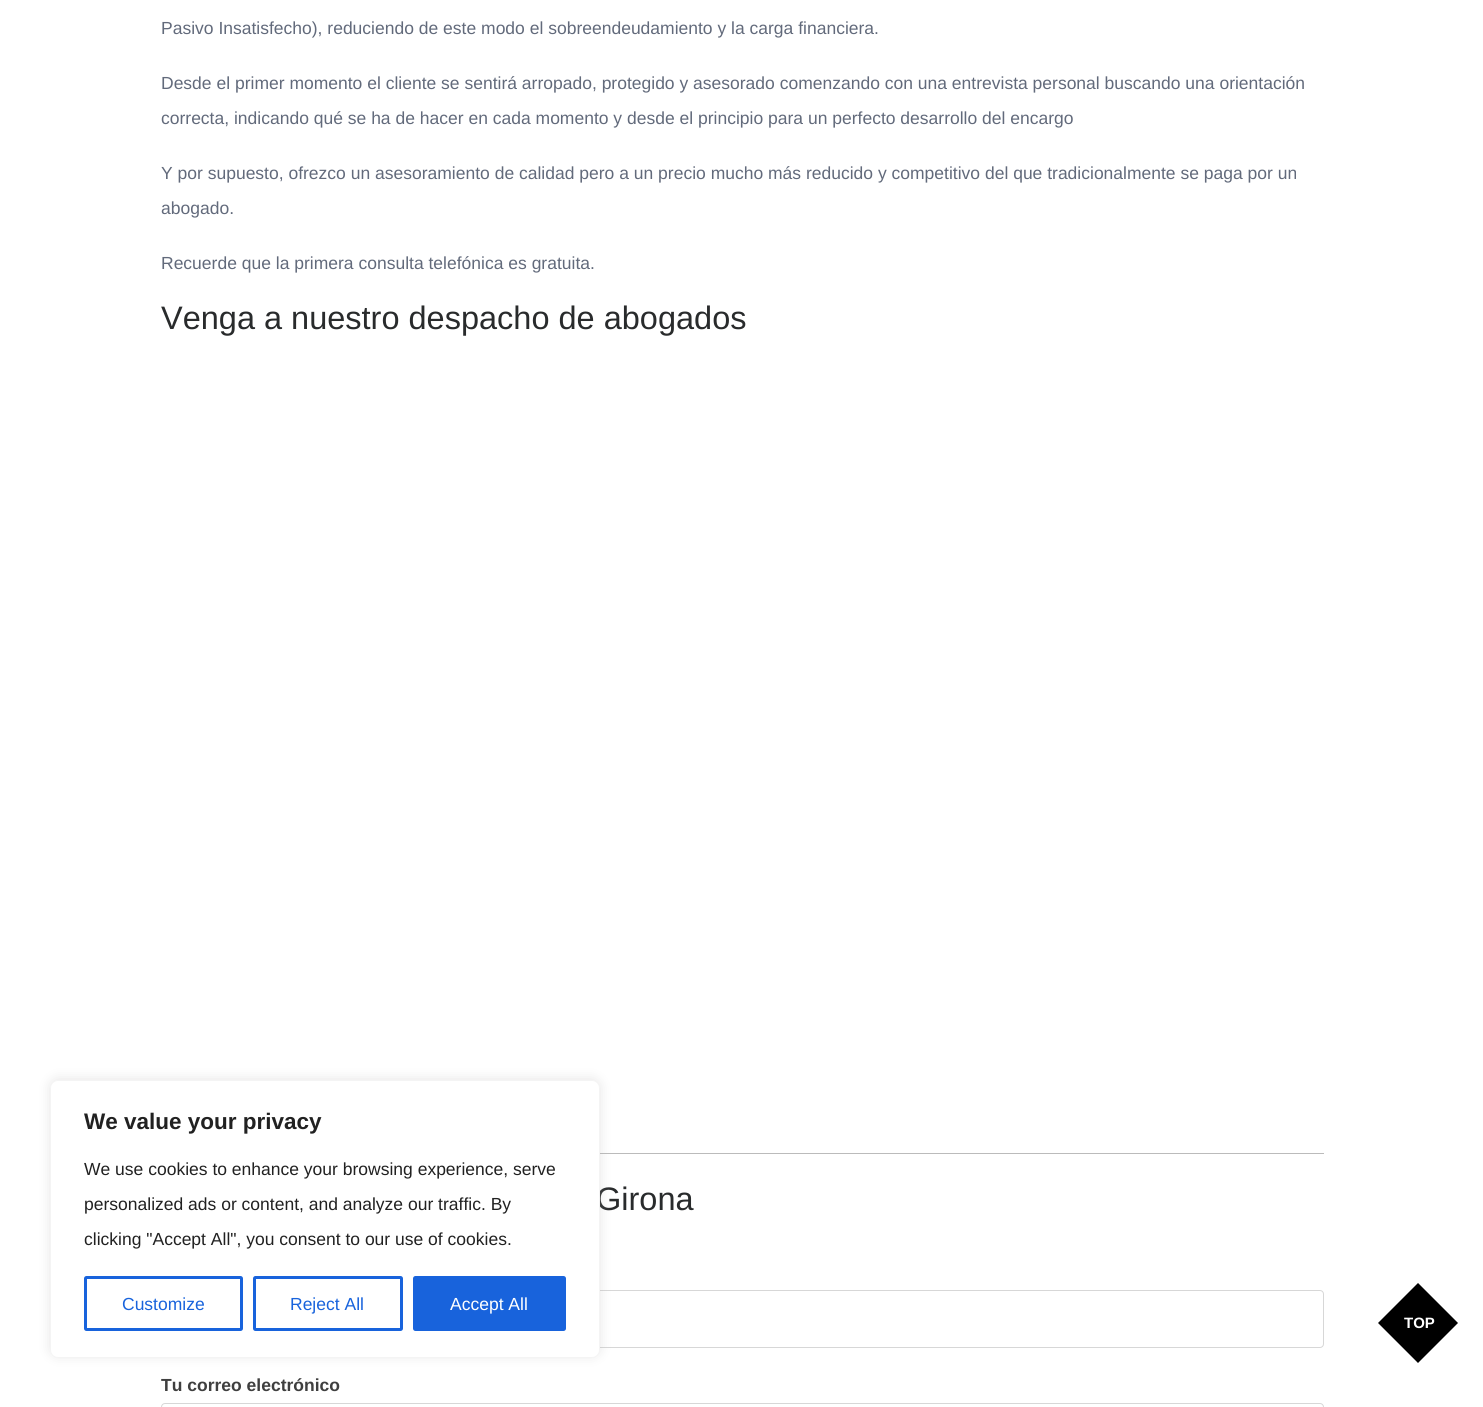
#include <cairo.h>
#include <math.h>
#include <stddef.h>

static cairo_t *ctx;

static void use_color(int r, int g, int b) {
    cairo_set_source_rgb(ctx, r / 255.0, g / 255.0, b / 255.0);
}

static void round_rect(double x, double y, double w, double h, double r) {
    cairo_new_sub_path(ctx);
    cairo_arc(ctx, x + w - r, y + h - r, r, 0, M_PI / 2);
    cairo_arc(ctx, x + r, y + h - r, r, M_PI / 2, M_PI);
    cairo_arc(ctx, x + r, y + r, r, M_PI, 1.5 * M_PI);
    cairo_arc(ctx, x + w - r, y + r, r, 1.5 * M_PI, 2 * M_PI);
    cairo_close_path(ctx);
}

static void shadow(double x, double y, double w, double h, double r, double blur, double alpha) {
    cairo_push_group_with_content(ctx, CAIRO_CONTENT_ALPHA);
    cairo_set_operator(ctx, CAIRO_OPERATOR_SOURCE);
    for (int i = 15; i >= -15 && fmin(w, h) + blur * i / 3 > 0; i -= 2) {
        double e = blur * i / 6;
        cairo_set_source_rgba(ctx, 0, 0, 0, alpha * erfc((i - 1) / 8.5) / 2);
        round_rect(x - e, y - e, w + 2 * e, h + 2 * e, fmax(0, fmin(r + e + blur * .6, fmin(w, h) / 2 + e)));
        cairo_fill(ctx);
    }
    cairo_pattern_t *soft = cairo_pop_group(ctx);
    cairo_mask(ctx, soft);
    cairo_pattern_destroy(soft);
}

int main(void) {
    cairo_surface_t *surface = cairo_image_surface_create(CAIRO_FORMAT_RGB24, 1483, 1407);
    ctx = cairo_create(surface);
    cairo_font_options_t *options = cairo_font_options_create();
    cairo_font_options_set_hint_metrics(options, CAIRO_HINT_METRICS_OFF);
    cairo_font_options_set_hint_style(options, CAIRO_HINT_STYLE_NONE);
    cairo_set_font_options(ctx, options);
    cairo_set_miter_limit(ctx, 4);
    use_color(255, 255, 255);
    cairo_paint(ctx);
    cairo_select_font_face(ctx, "Liberation Sans", CAIRO_FONT_SLANT_NORMAL, CAIRO_FONT_WEIGHT_NORMAL);
    cairo_set_font_size(ctx, 17.5);
    use_color(98, 106, 123);
    cairo_move_to(ctx, 161, 34);
    cairo_show_text(ctx, "Pasivo Insatisfecho), reduciendo de este modo el sobreendeudamiento y la carga financiera.");
    cairo_move_to(ctx, 161, 89);
    cairo_show_text(ctx, "Desde el primer momento el cliente se sentirá arropado, protegido y asesorado comenzando con una entrevista personal buscando una orientación");
    cairo_move_to(ctx, 161, 124);
    cairo_show_text(ctx, "correcta, indicando qué se ha de hacer en cada momento y desde el principio para un perfecto desarrollo del encargo");
    cairo_move_to(ctx, 161, 179);
    cairo_show_text(ctx, "Y por supuesto, ofrezco un asesoramiento de calidad pero a un precio mucho más reducido y competitivo del que tradicionalmente se paga por un");
    cairo_move_to(ctx, 161, 214);
    cairo_show_text(ctx, "abogado.");
    cairo_move_to(ctx, 161, 269);
    cairo_show_text(ctx, "Recuerde que la primera consulta telefónica es gratuita.");
    cairo_set_font_size(ctx, 32.5);
    use_color(41, 43, 44);
    cairo_move_to(ctx, 161, 329);
    cairo_show_text(ctx, "Venga a nuestro despacho de abogados");
    use_color(187, 187, 187);
    cairo_rectangle(ctx, 600, 1153, 724, 1);
    cairo_fill(ctx);
    use_color(41, 43, 44);
    cairo_move_to(ctx, 596, 1210);
    cairo_show_text(ctx, "Girona");
    round_rect(161.5, 1290.5, 1162, 57, 3.5);
    use_color(215, 215, 215);
    cairo_set_line_width(ctx, 1);
    cairo_stroke(ctx);
    cairo_select_font_face(ctx, "Liberation Sans", CAIRO_FONT_SLANT_NORMAL, CAIRO_FONT_WEIGHT_BOLD);
    cairo_set_font_size(ctx, 17.5);
    use_color(63, 63, 63);
    cairo_move_to(ctx, 161, 1391);
    cairo_show_text(ctx, "Tu correo electrónico");
    round_rect(161.5, 1403.5, 1162, 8, 3.5);
    use_color(215, 215, 215);
    cairo_stroke(ctx);
    use_color(0, 0, 0);
    cairo_new_path(ctx);
    cairo_move_to(ctx, 1378, 1323);
    cairo_line_to(ctx, 1418, 1283);
    cairo_line_to(ctx, 1458, 1323);
    cairo_line_to(ctx, 1418, 1363);
    cairo_close_path(ctx);
    cairo_fill(ctx);
    cairo_set_font_size(ctx, 15);
    use_color(255, 255, 255);
    cairo_move_to(ctx, 1404, 1328);
    cairo_show_text(ctx, "TOP");
    use_color(172, 171, 171);
    shadow(50, 1079, 550, 277, 8, 6, 0.3);
    use_color(255, 255, 255);
    round_rect(50.5, 1080.5, 549, 277, 7.5);
    cairo_fill_preserve(ctx);
    use_color(244, 244, 244);
    cairo_stroke(ctx);
    cairo_set_font_size(ctx, 22.5);
    use_color(33, 33, 33);
    cairo_move_to(ctx, 84, 1129);
    cairo_show_text(ctx, "We value your privacy");
    cairo_select_font_face(ctx, "Liberation Sans", CAIRO_FONT_SLANT_NORMAL, CAIRO_FONT_WEIGHT_NORMAL);
    cairo_set_font_size(ctx, 17.5);
    cairo_move_to(ctx, 84, 1175);
    cairo_show_text(ctx, "We use cookies to enhance your browsing experience, serve");
    cairo_move_to(ctx, 84, 1210);
    cairo_show_text(ctx, "personalized ads or content, and analyze our traffic. By");
    cairo_move_to(ctx, 84, 1245);
    cairo_show_text(ctx, "clicking \"Accept All\", you consent to our use of cookies.");
    round_rect(85.5, 1277.5, 156, 52, 1);
    use_color(24, 99, 220);
    cairo_set_line_width(ctx, 3);
    cairo_stroke(ctx);
    cairo_move_to(ctx, 122, 1310);
    cairo_show_text(ctx, "Customize");
    round_rect(254.5, 1277.5, 147, 52, 1);
    cairo_stroke(ctx);
    cairo_move_to(ctx, 290, 1310);
    cairo_show_text(ctx, "Reject All");
    round_rect(414.5, 1277.5, 150, 52, 1);
    cairo_fill_preserve(ctx);
    cairo_stroke(ctx);
    use_color(255, 255, 255);
    cairo_move_to(ctx, 450, 1310);
    cairo_show_text(ctx, "Accept All");
    cairo_surface_write_to_png(surface, "result.png");
    cairo_font_options_destroy(options);
    cairo_destroy(ctx);
    cairo_surface_destroy(surface);
    return 0;
}
